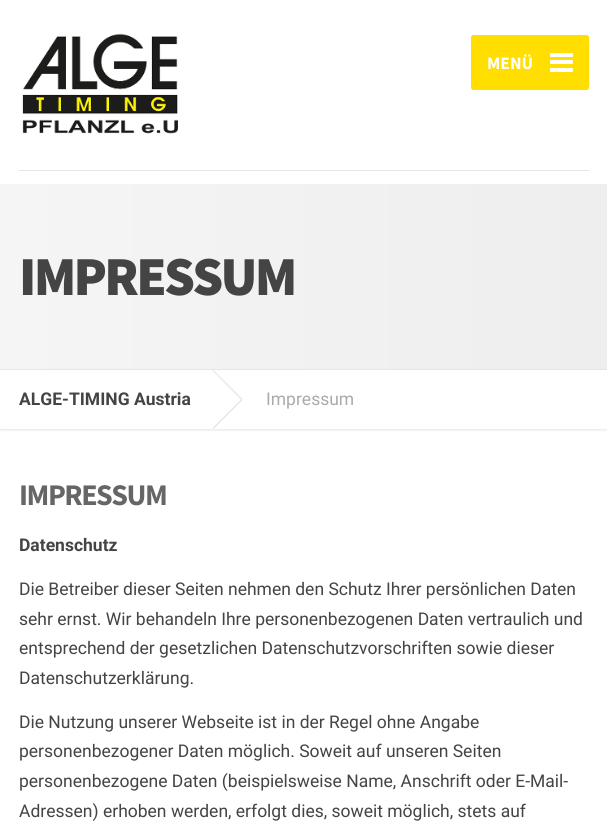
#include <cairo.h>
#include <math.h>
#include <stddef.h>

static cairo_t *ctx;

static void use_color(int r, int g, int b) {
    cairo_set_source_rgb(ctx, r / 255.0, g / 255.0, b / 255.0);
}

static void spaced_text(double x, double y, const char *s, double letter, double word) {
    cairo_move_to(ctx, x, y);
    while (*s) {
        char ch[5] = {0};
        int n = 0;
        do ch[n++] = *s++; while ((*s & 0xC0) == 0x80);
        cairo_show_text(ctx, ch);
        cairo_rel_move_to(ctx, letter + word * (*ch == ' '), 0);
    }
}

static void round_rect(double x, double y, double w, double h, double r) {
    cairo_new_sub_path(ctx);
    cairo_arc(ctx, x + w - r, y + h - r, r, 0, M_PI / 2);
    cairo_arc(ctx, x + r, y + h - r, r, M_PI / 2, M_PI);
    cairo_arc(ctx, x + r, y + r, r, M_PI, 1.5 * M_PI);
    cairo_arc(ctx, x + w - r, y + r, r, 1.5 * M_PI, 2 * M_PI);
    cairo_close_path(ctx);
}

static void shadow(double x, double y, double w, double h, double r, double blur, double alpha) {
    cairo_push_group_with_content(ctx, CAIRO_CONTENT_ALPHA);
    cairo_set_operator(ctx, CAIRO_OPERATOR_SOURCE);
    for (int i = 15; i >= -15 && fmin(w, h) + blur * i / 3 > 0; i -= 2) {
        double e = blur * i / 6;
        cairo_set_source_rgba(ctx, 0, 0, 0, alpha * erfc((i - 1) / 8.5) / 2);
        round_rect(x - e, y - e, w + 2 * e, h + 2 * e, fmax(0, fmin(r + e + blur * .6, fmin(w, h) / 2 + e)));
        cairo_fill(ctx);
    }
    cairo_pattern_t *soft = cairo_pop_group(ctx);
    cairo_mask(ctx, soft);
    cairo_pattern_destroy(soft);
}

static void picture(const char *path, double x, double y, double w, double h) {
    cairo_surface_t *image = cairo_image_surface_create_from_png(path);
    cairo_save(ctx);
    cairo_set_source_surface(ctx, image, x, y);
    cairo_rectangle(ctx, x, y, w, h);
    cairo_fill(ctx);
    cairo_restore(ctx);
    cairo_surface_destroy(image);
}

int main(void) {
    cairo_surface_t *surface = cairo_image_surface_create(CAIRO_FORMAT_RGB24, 607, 832);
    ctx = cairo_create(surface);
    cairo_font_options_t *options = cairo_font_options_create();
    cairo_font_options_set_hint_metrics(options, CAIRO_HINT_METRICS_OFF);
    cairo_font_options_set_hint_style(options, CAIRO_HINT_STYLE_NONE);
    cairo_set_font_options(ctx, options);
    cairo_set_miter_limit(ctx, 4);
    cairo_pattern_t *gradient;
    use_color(255, 255, 255);
    cairo_paint(ctx);
    use_color(230, 230, 230);
    cairo_rectangle(ctx, 19, 170, 570, 1);
    cairo_fill(ctx);
    picture("img1.png", 22, 33, 156, 101);
    use_color(255, 222, 0);
    round_rect(471, 35, 118, 55, 2.5);
    cairo_fill(ctx);
    cairo_select_font_face(ctx, "Source Sans Pro", CAIRO_FONT_SLANT_NORMAL, CAIRO_FONT_WEIGHT_BOLD);
    cairo_set_font_size(ctx, 17.5);
    use_color(255, 255, 255);
    cairo_move_to(ctx, 487, 69);
    cairo_show_text(ctx, "MENÜ");
    round_rect(550, 53, 23, 4, 1);
    cairo_fill(ctx);
    round_rect(550, 60, 23, 4, 1);
    cairo_fill(ctx);
    round_rect(550, 68, 23, 4, 1);
    cairo_fill(ctx);
    gradient = cairo_pattern_create_linear(0, 276, 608, 276);
    cairo_pattern_add_color_stop_rgba(gradient, 0, 0.961, 0.961, 0.961, 1);
    cairo_pattern_add_color_stop_rgba(gradient, 1, 0.933, 0.933, 0.933, 1);
    cairo_set_source(ctx, gradient);
    cairo_pattern_destroy(gradient);
    cairo_rectangle(ctx, 0, 184, 607, 185);
    cairo_fill(ctx);
    cairo_select_font_face(ctx, "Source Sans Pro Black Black", CAIRO_FONT_SLANT_NORMAL, CAIRO_FONT_WEIGHT_NORMAL);
    cairo_set_font_size(ctx, 55);
    use_color(68, 68, 68);
    spaced_text(19, 295, "IMPRESSUM", -2.75, 0);
    use_color(230, 230, 230);
    shadow(0, 370, 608, 60, 0, 1, 1);
    use_color(255, 255, 255);
    cairo_rectangle(ctx, 0, 370, 607, 59);
    cairo_fill(ctx);
    use_color(230, 230, 230);
    cairo_rectangle(ctx, 0, 369, 607, 1);
    cairo_fill(ctx);
    cairo_select_font_face(ctx, "Roboto", CAIRO_FONT_SLANT_NORMAL, CAIRO_FONT_WEIGHT_BOLD);
    cairo_set_font_size(ctx, 17.5);
    use_color(68, 68, 68);
    cairo_move_to(ctx, 19, 405);
    cairo_show_text(ctx, "ALGE-TIMING Austria");
    use_color(230, 230, 230);
    cairo_new_path(ctx);
    cairo_move_to(ctx, 212.5, 370.5);
    cairo_line_to(ctx, 213.5, 370);
    cairo_line_to(ctx, 242.5, 399);
    cairo_line_to(ctx, 241.5, 400);
    cairo_close_path(ctx);
    cairo_fill(ctx);
    cairo_new_path(ctx);
    cairo_move_to(ctx, 241.5, 399);
    cairo_line_to(ctx, 242.5, 400);
    cairo_line_to(ctx, 213.5, 429);
    cairo_line_to(ctx, 212.5, 428);
    cairo_close_path(ctx);
    cairo_fill(ctx);
    cairo_select_font_face(ctx, "Roboto", CAIRO_FONT_SLANT_NORMAL, CAIRO_FONT_WEIGHT_NORMAL);
    use_color(170, 170, 170);
    cairo_move_to(ctx, 266, 405);
    cairo_show_text(ctx, "Impressum");
    cairo_select_font_face(ctx, "Source Sans Pro", CAIRO_FONT_SLANT_NORMAL, CAIRO_FONT_WEIGHT_BOLD);
    cairo_set_font_size(ctx, 30);
    use_color(102, 102, 102);
    spaced_text(19, 505, "IMPRESSUM", -1.5, 0);
    cairo_select_font_face(ctx, "Roboto", CAIRO_FONT_SLANT_NORMAL, CAIRO_FONT_WEIGHT_BOLD);
    cairo_set_font_size(ctx, 17.5);
    use_color(68, 68, 68);
    cairo_move_to(ctx, 19, 551);
    cairo_show_text(ctx, "Datenschutz");
    cairo_select_font_face(ctx, "Roboto", CAIRO_FONT_SLANT_NORMAL, CAIRO_FONT_WEIGHT_NORMAL);
    cairo_move_to(ctx, 19, 595);
    cairo_show_text(ctx, "Die Betreiber dieser Seiten nehmen den Schutz Ihrer persönlichen Daten");
    cairo_move_to(ctx, 19, 625);
    cairo_show_text(ctx, "sehr ernst. Wir behandeln Ihre personenbezogenen Daten vertraulich und");
    cairo_move_to(ctx, 19, 654);
    cairo_show_text(ctx, "entsprechend der gesetzlichen Datenschutzvorschriften sowie dieser");
    cairo_move_to(ctx, 19, 684);
    cairo_show_text(ctx, "Datenschutzerklärung.");
    cairo_move_to(ctx, 19, 728);
    cairo_show_text(ctx, "Die Nutzung unserer Webseite ist in der Regel ohne Angabe");
    cairo_move_to(ctx, 19, 757);
    cairo_show_text(ctx, "personenbezogener Daten möglich. Soweit auf unseren Seiten");
    cairo_move_to(ctx, 19, 787);
    cairo_show_text(ctx, "personenbezogene Daten (beispielsweise Name, Anschrift oder E-Mail-");
    cairo_move_to(ctx, 19, 817);
    cairo_show_text(ctx, "Adressen) erhoben werden, erfolgt dies, soweit möglich, stets auf");
    cairo_surface_write_to_png(surface, "result.png");
    cairo_font_options_destroy(options);
    cairo_destroy(ctx);
    cairo_surface_destroy(surface);
    return 0;
}
